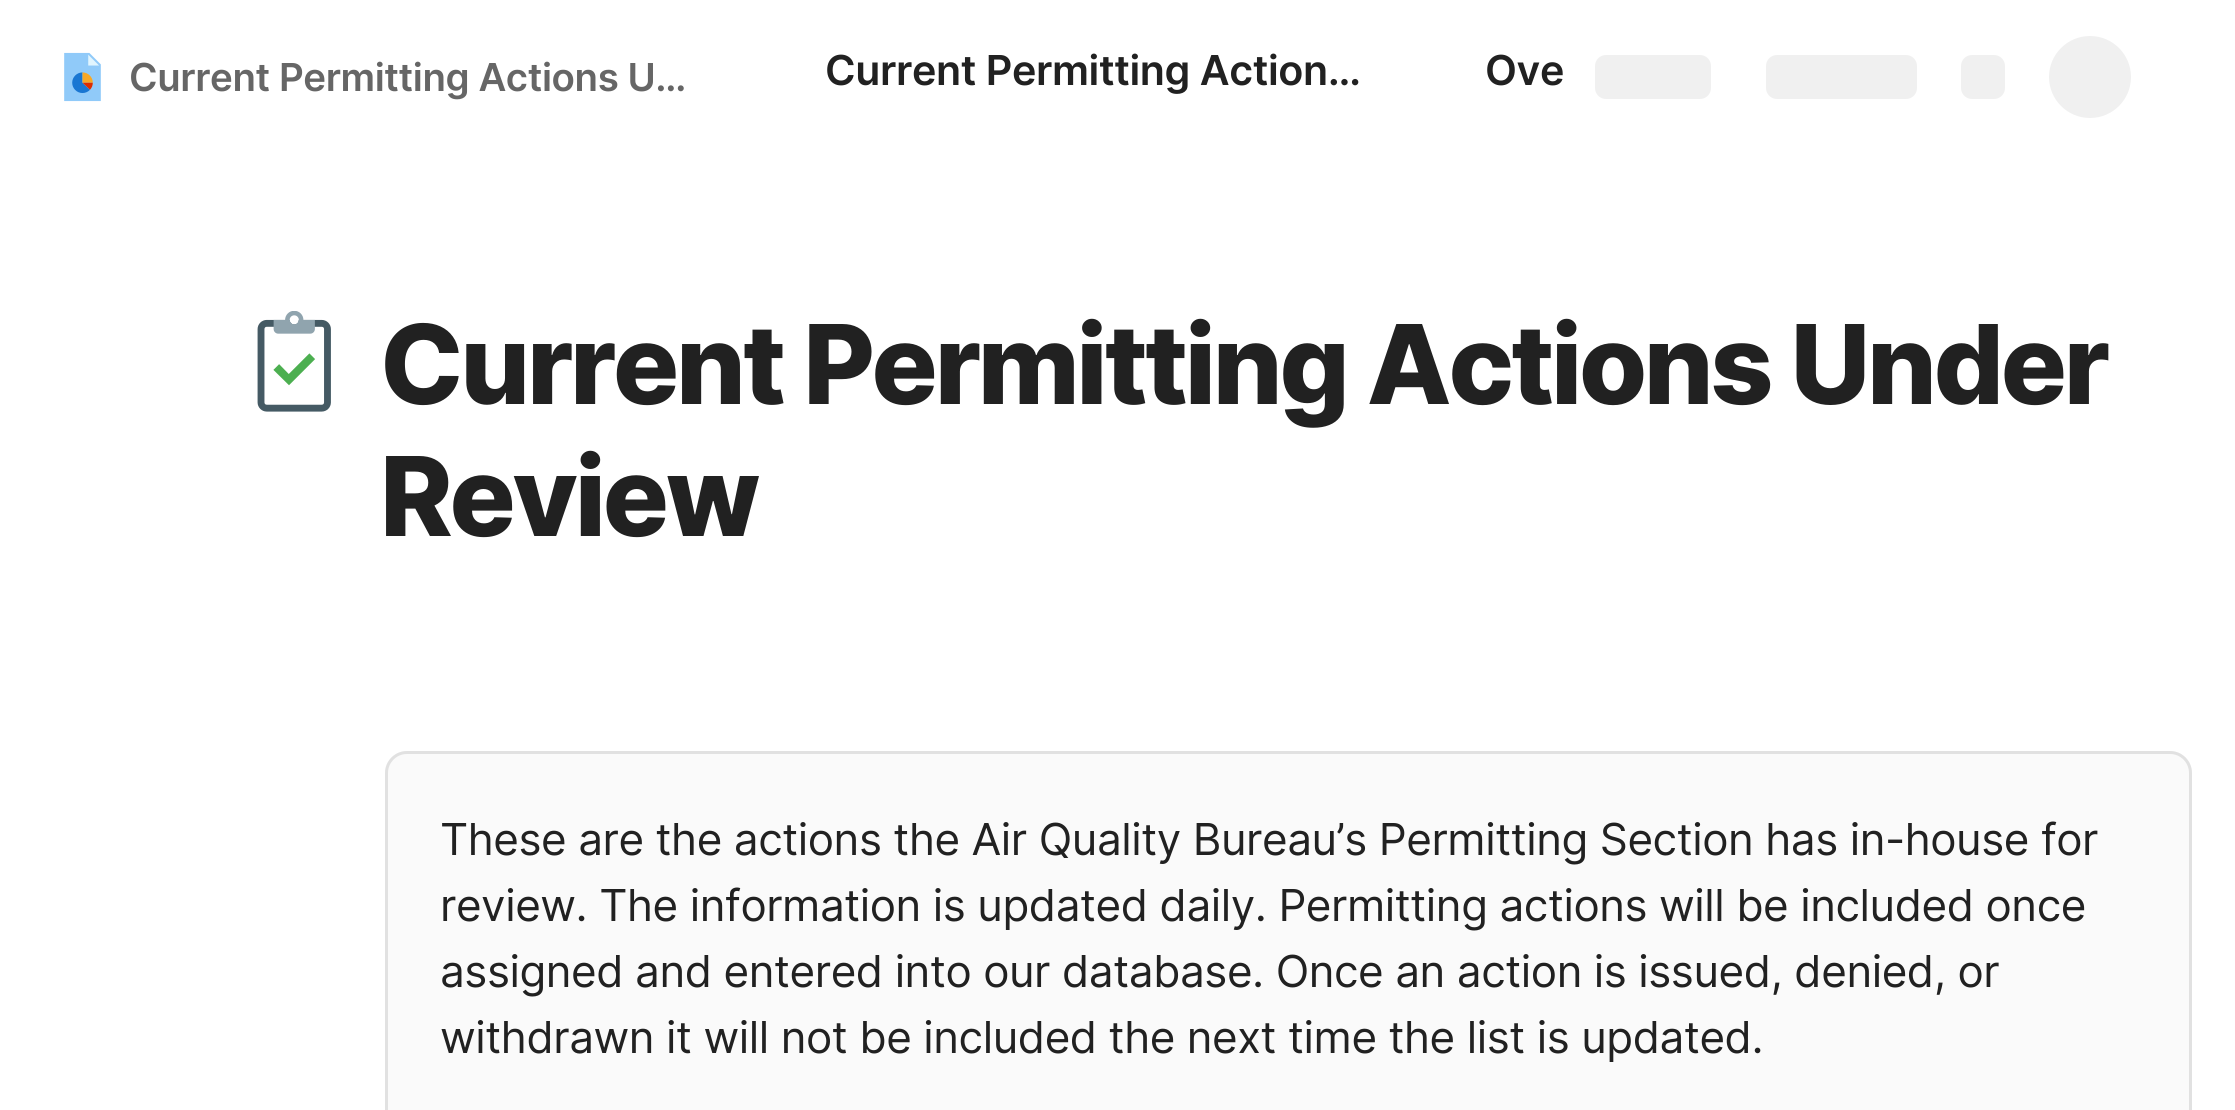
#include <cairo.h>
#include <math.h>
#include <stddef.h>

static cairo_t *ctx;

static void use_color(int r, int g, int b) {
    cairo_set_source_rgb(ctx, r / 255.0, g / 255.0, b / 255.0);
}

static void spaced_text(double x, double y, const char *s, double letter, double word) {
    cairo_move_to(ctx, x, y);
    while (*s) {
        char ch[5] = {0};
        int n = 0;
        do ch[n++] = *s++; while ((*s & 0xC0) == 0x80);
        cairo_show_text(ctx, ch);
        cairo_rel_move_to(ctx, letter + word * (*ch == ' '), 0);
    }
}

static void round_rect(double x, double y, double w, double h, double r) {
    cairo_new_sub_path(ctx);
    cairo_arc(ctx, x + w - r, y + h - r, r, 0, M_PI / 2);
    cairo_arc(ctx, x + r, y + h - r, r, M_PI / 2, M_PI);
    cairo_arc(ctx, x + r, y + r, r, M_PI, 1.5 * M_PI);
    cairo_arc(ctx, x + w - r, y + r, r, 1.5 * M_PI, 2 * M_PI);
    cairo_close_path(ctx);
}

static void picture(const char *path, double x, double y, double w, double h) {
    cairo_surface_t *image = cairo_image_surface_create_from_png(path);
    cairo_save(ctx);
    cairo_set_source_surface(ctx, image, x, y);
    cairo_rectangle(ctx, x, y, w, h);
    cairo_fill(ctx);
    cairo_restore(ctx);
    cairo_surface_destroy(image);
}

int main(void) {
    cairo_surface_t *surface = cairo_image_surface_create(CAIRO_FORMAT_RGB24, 2235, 1110);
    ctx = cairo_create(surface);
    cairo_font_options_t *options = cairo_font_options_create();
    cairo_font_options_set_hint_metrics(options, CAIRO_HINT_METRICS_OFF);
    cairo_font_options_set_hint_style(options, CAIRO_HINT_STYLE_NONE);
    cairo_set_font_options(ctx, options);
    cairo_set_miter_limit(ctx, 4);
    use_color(255, 255, 255);
    cairo_paint(ctx);
    picture("img1.png", 64, 52, 37, 50);
    cairo_select_font_face(ctx, "Inter SemiBold", CAIRO_FONT_SLANT_NORMAL, CAIRO_FONT_WEIGHT_NORMAL);
    cairo_set_font_size(ctx, 38.5);
    use_color(102, 102, 102);
    spaced_text(129, 91, "Current Permitting Actions U…", -0.4, 0);
    cairo_set_font_size(ctx, 41.25);
    use_color(33, 33, 33);
    spaced_text(825, 85, "Current Permitting Action…", -0.4, 0);
    spaced_text(1485, 85, "Ove", -0.4, 0);
    use_color(240, 240, 240);
    round_rect(1595, 55, 116, 44, 11);
    cairo_fill(ctx);
    round_rect(1766, 55, 151, 44, 11);
    cairo_fill(ctx);
    round_rect(1961, 55, 44, 44, 11);
    cairo_fill(ctx);
    cairo_arc(ctx, 2090, 77, 41, 0, 2 * M_PI);
    cairo_fill(ctx);
    picture("img2.png", 257, 311, 74, 101);
    cairo_select_font_face(ctx, "Inter ExtraBold", CAIRO_FONT_SLANT_NORMAL, CAIRO_FONT_WEIGHT_NORMAL);
    cairo_set_font_size(ctx, 110);
    use_color(33, 33, 33);
    spaced_text(380, 404, "Current Permitting Actions Under", -3.3, 0);
    spaced_text(380, 536, "Review", -3.3, 0);
    use_color(250, 250, 250);
    cairo_new_path(ctx);
    cairo_move_to(ctx, 407, 751);
    cairo_line_to(ctx, 2170, 751);
    cairo_curve_to(ctx, 2182, 751, 2192, 761, 2192, 773);
    cairo_line_to(ctx, 2192, 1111);
    cairo_line_to(ctx, 385, 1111);
    cairo_line_to(ctx, 385, 773);
    cairo_curve_to(ctx, 385, 761, 395, 751, 407, 751);
    cairo_close_path(ctx);
    cairo_fill(ctx);
    round_rect(386.5, 752.5, 1804, 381, 20.5);
    use_color(225, 225, 225);
    cairo_set_line_width(ctx, 3);
    cairo_stroke(ctx);
    cairo_select_font_face(ctx, "Inter", CAIRO_FONT_SLANT_NORMAL, CAIRO_FONT_WEIGHT_NORMAL);
    cairo_set_font_size(ctx, 44);
    use_color(33, 33, 33);
    spaced_text(440, 855, "These are the actions the Air Quality Bureau’s Permitting Section has in-house for", -0.45, 0);
    spaced_text(440, 921, "review. The information is updated daily. Permitting actions will be included once", -0.45, 0);
    spaced_text(440, 987, "assigned and entered into our database. Once an action is issued, denied, or", -0.45, 0);
    spaced_text(440, 1053, "withdrawn it will not be included the next time the list is updated.", -0.45, 0);
    cairo_surface_write_to_png(surface, "result.png");
    cairo_font_options_destroy(options);
    cairo_destroy(ctx);
    cairo_surface_destroy(surface);
    return 0;
}
